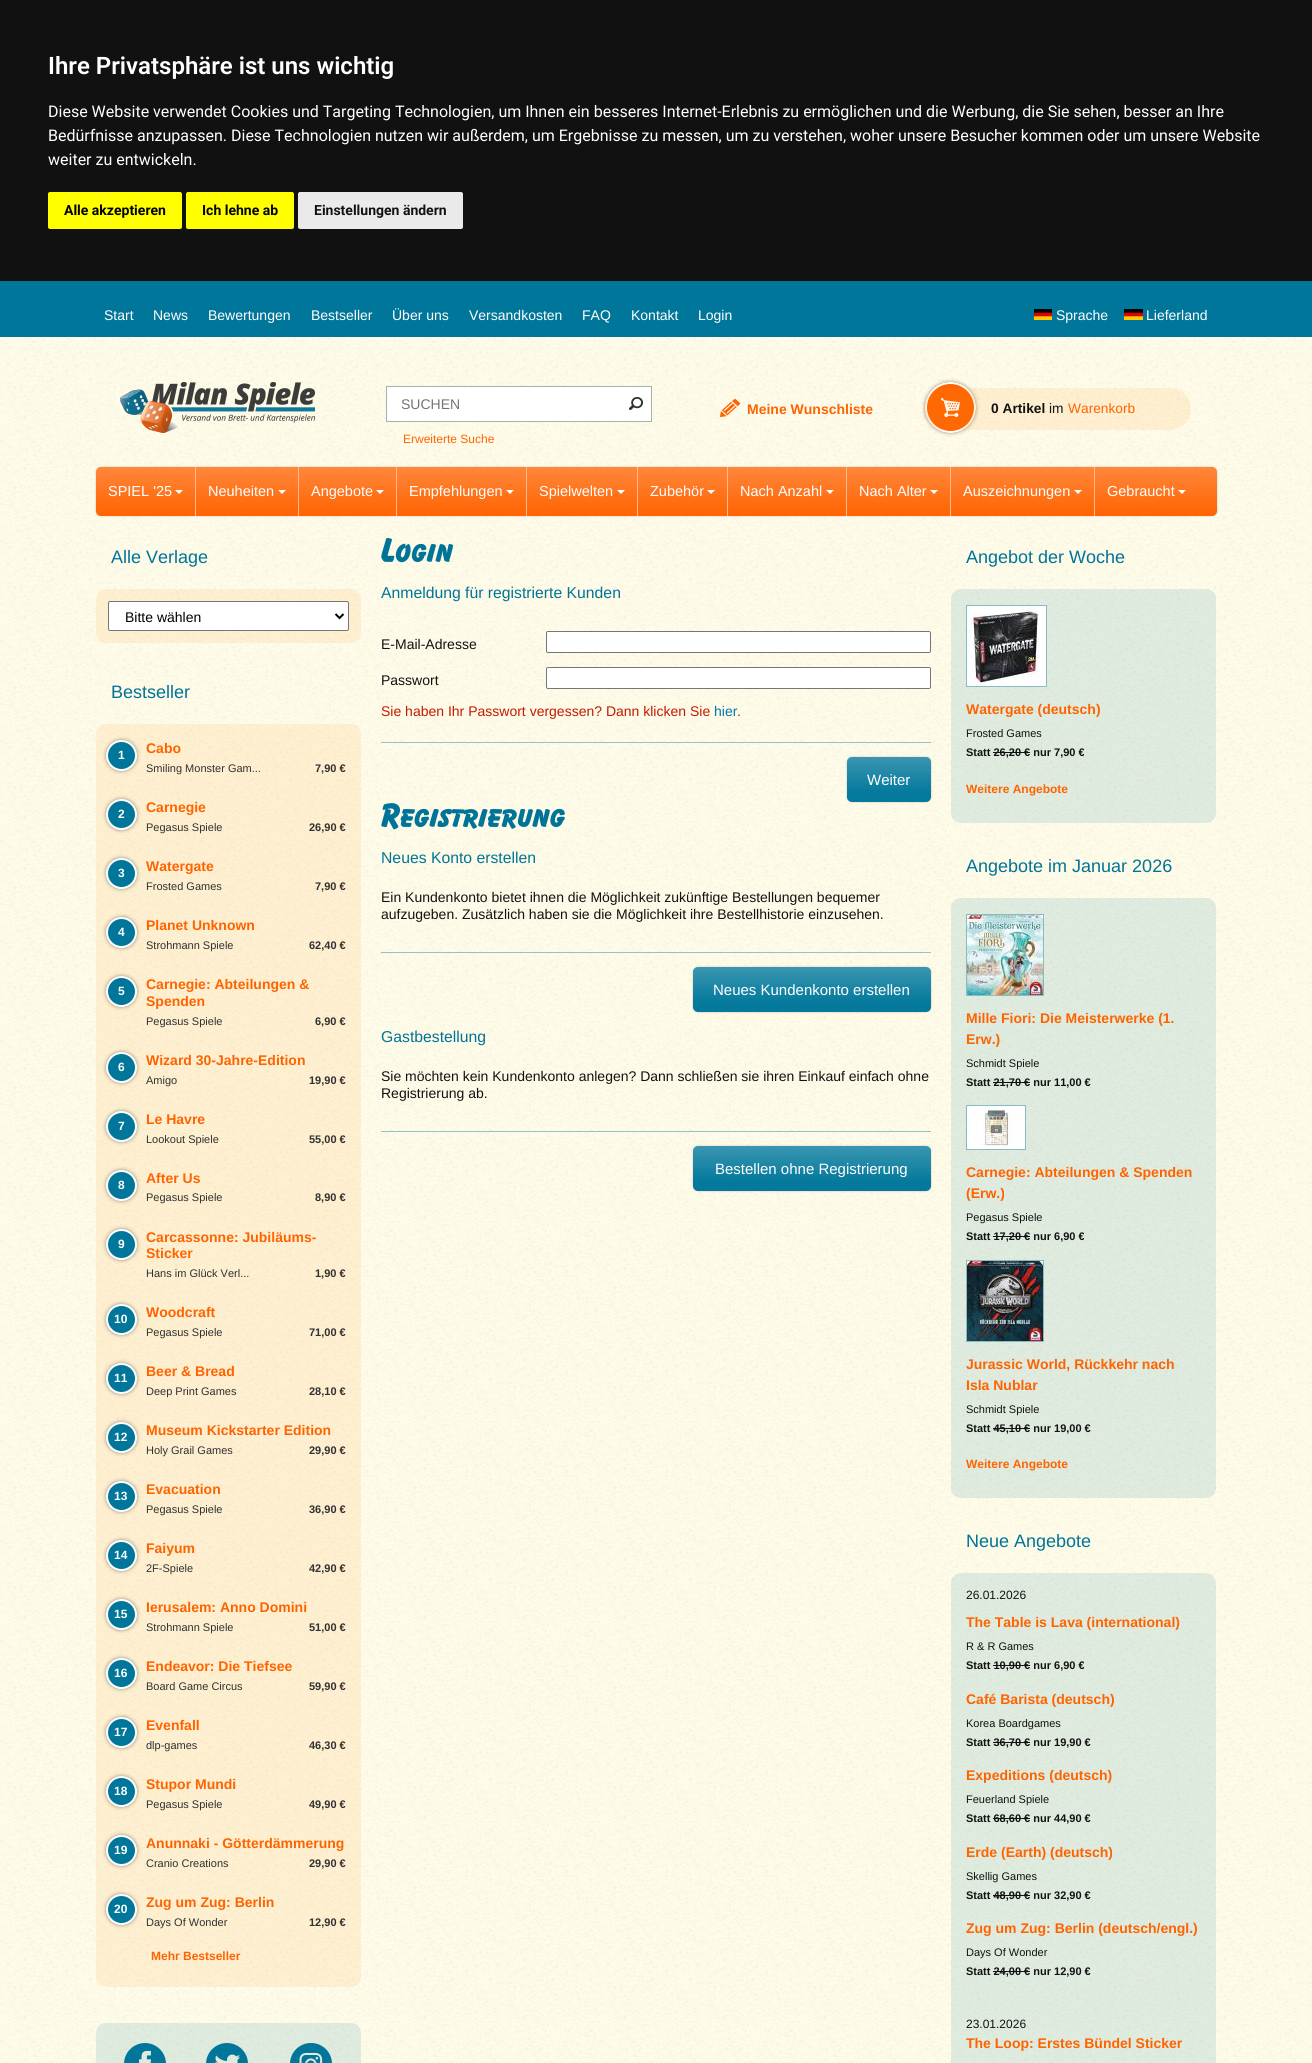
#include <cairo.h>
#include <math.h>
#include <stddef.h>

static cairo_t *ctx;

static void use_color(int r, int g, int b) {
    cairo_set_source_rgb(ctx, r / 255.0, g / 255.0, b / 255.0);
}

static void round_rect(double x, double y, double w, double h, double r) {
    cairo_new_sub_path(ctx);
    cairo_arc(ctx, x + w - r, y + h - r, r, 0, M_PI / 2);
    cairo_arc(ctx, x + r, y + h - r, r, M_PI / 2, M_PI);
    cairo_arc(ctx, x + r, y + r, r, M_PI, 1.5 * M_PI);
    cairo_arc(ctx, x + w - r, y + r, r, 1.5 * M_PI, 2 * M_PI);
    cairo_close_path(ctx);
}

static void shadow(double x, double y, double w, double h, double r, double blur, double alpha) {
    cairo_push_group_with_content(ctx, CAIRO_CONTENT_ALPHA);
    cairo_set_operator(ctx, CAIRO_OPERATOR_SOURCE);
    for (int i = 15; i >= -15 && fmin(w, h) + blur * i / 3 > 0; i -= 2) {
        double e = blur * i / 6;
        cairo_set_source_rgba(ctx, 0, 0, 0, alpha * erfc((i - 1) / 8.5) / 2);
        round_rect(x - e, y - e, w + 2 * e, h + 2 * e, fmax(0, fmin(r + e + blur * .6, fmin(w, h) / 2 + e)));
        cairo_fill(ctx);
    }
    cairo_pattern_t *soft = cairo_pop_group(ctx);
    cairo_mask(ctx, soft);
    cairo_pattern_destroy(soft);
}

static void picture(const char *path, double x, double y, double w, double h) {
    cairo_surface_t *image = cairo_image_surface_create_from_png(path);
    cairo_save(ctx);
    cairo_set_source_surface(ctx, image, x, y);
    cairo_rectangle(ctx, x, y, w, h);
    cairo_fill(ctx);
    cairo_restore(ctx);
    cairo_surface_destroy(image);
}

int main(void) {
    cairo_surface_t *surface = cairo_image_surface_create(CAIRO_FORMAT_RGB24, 1312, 2063);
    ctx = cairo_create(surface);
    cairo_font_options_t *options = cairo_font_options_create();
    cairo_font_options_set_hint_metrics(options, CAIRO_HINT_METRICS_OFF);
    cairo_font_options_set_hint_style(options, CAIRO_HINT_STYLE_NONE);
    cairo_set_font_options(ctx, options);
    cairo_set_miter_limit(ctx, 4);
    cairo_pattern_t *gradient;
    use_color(255, 255, 255);
    cairo_paint(ctx);
    picture("img1.png", 0, 337, 1312, 1726);
    use_color(17, 17, 17);
    cairo_rectangle(ctx, 0, 0, 1312, 281);
    cairo_fill(ctx);
    cairo_select_font_face(ctx, "Roboto SemiBold", CAIRO_FONT_SLANT_NORMAL, CAIRO_FONT_WEIGHT_NORMAL);
    cairo_set_font_size(ctx, 24);
    use_color(255, 255, 255);
    cairo_move_to(ctx, 48, 74);
    cairo_show_text(ctx, "Ihre Privatsphäre ist uns wichtig");
    cairo_select_font_face(ctx, "Roboto", CAIRO_FONT_SLANT_NORMAL, CAIRO_FONT_WEIGHT_NORMAL);
    cairo_set_font_size(ctx, 16);
    cairo_move_to(ctx, 48, 117);
    cairo_show_text(ctx, "Diese Website verwendet Cookies und Targeting Technologien, um Ihnen ein besseres Internet-Erlebnis zu ermöglichen und die Werbung, die Sie sehen, besser an Ihre");
    cairo_move_to(ctx, 48, 141);
    cairo_show_text(ctx, "Bedürfnisse anzupassen. Diese Technologien nutzen wir außerdem, um Ergebnisse zu messen, um zu verstehen, woher unsere Besucher kommen oder um unsere Website");
    cairo_move_to(ctx, 48, 165);
    cairo_show_text(ctx, "weiter zu entwickeln.");
    use_color(255, 255, 0);
    round_rect(48, 192, 134, 37, 2);
    cairo_fill(ctx);
    cairo_select_font_face(ctx, "Roboto", CAIRO_FONT_SLANT_NORMAL, CAIRO_FONT_WEIGHT_BOLD);
    cairo_set_font_size(ctx, 14);
    use_color(0, 0, 0);
    cairo_move_to(ctx, 64, 215);
    cairo_show_text(ctx, "Alle akzeptieren");
    use_color(255, 255, 0);
    round_rect(186, 192, 108, 37, 2);
    cairo_fill(ctx);
    use_color(0, 0, 0);
    cairo_move_to(ctx, 202, 215);
    cairo_show_text(ctx, "Ich lehne ab");
    use_color(234, 234, 234);
    round_rect(298, 192, 165, 37, 2);
    cairo_fill(ctx);
    use_color(17, 18, 18);
    cairo_move_to(ctx, 314, 215);
    cairo_show_text(ctx, "Einstellungen ändern");
    use_color(0, 119, 154);
    cairo_rectangle(ctx, 0, 281, 1312, 56);
    cairo_fill(ctx);
    cairo_select_font_face(ctx, "Liberation Sans", CAIRO_FONT_SLANT_NORMAL, CAIRO_FONT_WEIGHT_NORMAL);
    use_color(255, 255, 255);
    cairo_move_to(ctx, 104, 320);
    cairo_show_text(ctx, "Start");
    cairo_move_to(ctx, 153, 320);
    cairo_show_text(ctx, "News");
    cairo_move_to(ctx, 208, 320);
    cairo_show_text(ctx, "Bewertungen");
    cairo_move_to(ctx, 311, 320);
    cairo_show_text(ctx, "Bestseller");
    cairo_move_to(ctx, 392, 320);
    cairo_show_text(ctx, "Über uns");
    cairo_move_to(ctx, 469, 320);
    cairo_show_text(ctx, "Versandkosten");
    cairo_move_to(ctx, 582, 320);
    cairo_show_text(ctx, "FAQ");
    cairo_move_to(ctx, 631, 320);
    cairo_show_text(ctx, "Kontakt");
    cairo_move_to(ctx, 698, 320);
    cairo_show_text(ctx, "Login");
    picture("img2.png", 1034, 309, 18, 11);
    cairo_move_to(ctx, 1056, 320);
    cairo_show_text(ctx, "Sprache");
    picture("img3.png", 1124, 309, 19, 11);
    cairo_move_to(ctx, 1146, 320);
    cairo_show_text(ctx, "Lieferland");
    picture("img4.png", 120, 382, 195, 51);
    cairo_rectangle(ctx, 387, 387, 264, 34);
    cairo_fill(ctx);
    picture("img5.png", 629, 397, 14, 13);
    cairo_rectangle(ctx, 386.5, 386.5, 265, 35);
    use_color(168, 178, 168);
    cairo_set_line_width(ctx, 1);
    cairo_stroke(ctx);
    use_color(117, 117, 117);
    cairo_move_to(ctx, 401, 409);
    cairo_show_text(ctx, "SUCHEN");
    cairo_set_font_size(ctx, 12);
    use_color(255, 99, 0);
    cairo_move_to(ctx, 403, 443);
    cairo_show_text(ctx, "Erweiterte Suche");
    picture("img6.png", 720, 399, 20, 18);
    cairo_select_font_face(ctx, "Liberation Sans", CAIRO_FONT_SLANT_NORMAL, CAIRO_FONT_WEIGHT_BOLD);
    cairo_set_font_size(ctx, 14);
    cairo_move_to(ctx, 747, 414);
    cairo_show_text(ctx, "Meine Wunschliste");
    use_color(0, 0, 0);
    shadow(925, 382, 51, 51, 25.5, 2, 0.4);
    use_color(255, 99, 0);
    cairo_arc(ctx, 950.5, 407.5, 25.5, 0, 2 * M_PI);
    cairo_fill(ctx);
    picture("img7.png", 941, 398, 19, 19);
    cairo_arc(ctx, 950.5, 407.5, 24.5, 0, 2 * M_PI);
    use_color(255, 255, 255);
    cairo_set_line_width(ctx, 2);
    cairo_stroke(ctx);
    cairo_set_source_rgba(ctx, 1, 0.616, 0.118, 0.12);
    round_rect(923, 388, 268, 42, 21);
    cairo_fill(ctx);
    cairo_set_font_size(ctx, 13.75);
    use_color(17, 18, 18);
    cairo_move_to(ctx, 991, 413);
    cairo_show_text(ctx, "0 Artikel");
    cairo_select_font_face(ctx, "Liberation Sans", CAIRO_FONT_SLANT_NORMAL, CAIRO_FONT_WEIGHT_NORMAL);
    cairo_move_to(ctx, 1049, 413);
    cairo_show_text(ctx, "im");
    use_color(255, 99, 0);
    cairo_move_to(ctx, 1068, 413);
    cairo_show_text(ctx, "Warenkorb");
    use_color(0, 0, 0);
    shadow(96, 467, 1121, 49, 5, 1, 0.2);
    gradient = cairo_pattern_create_linear(657, 516, 657, 467);
    cairo_pattern_add_color_stop_rgba(gradient, 0, 1, 0.388, 0.004, 1);
    cairo_pattern_add_color_stop_rgba(gradient, 1, 1, 0.529, 0.231, 1);
    cairo_set_source(ctx, gradient);
    cairo_pattern_destroy(gradient);
    round_rect(96, 467, 1121, 49, 5);
    cairo_fill(ctx);
    use_color(255, 187, 143);
    cairo_rectangle(ctx, 195, 467, 1, 49);
    cairo_fill(ctx);
    cairo_set_font_size(ctx, 14.5);
    use_color(255, 255, 255);
    cairo_move_to(ctx, 108, 496);
    cairo_show_text(ctx, "SPIEL '25");
    cairo_new_path(ctx);
    cairo_move_to(ctx, 175, 490);
    cairo_line_to(ctx, 183, 490);
    cairo_line_to(ctx, 179, 494);
    cairo_close_path(ctx);
    cairo_fill(ctx);
    use_color(255, 187, 143);
    cairo_rectangle(ctx, 298, 467, 1, 49);
    cairo_fill(ctx);
    use_color(255, 255, 255);
    cairo_move_to(ctx, 208, 496);
    cairo_show_text(ctx, "Neuheiten");
    cairo_new_path(ctx);
    cairo_move_to(ctx, 278, 490);
    cairo_line_to(ctx, 286, 490);
    cairo_line_to(ctx, 282, 494);
    cairo_close_path(ctx);
    cairo_fill(ctx);
    use_color(255, 187, 143);
    cairo_rectangle(ctx, 396, 467, 1, 49);
    cairo_fill(ctx);
    use_color(255, 255, 255);
    cairo_move_to(ctx, 311, 496);
    cairo_show_text(ctx, "Angebote");
    cairo_new_path(ctx);
    cairo_move_to(ctx, 376, 490);
    cairo_line_to(ctx, 384, 490);
    cairo_line_to(ctx, 380, 494);
    cairo_close_path(ctx);
    cairo_fill(ctx);
    use_color(255, 187, 143);
    cairo_rectangle(ctx, 526, 467, 1, 49);
    cairo_fill(ctx);
    use_color(255, 255, 255);
    cairo_move_to(ctx, 409, 496);
    cairo_show_text(ctx, "Empfehlungen");
    cairo_new_path(ctx);
    cairo_move_to(ctx, 506, 490);
    cairo_line_to(ctx, 514, 490);
    cairo_line_to(ctx, 510, 494);
    cairo_close_path(ctx);
    cairo_fill(ctx);
    use_color(255, 187, 143);
    cairo_rectangle(ctx, 637, 467, 1, 49);
    cairo_fill(ctx);
    use_color(255, 255, 255);
    cairo_move_to(ctx, 539, 496);
    cairo_show_text(ctx, "Spielwelten");
    cairo_new_path(ctx);
    cairo_move_to(ctx, 617, 490);
    cairo_line_to(ctx, 625, 490);
    cairo_line_to(ctx, 621, 494);
    cairo_close_path(ctx);
    cairo_fill(ctx);
    use_color(255, 187, 143);
    cairo_rectangle(ctx, 727, 467, 1, 49);
    cairo_fill(ctx);
    use_color(255, 255, 255);
    cairo_move_to(ctx, 650, 496);
    cairo_show_text(ctx, "Zubehör");
    cairo_new_path(ctx);
    cairo_move_to(ctx, 707, 490);
    cairo_line_to(ctx, 715, 490);
    cairo_line_to(ctx, 711, 494);
    cairo_close_path(ctx);
    cairo_fill(ctx);
    use_color(255, 187, 143);
    cairo_rectangle(ctx, 846, 467, 1, 49);
    cairo_fill(ctx);
    use_color(255, 255, 255);
    cairo_move_to(ctx, 740, 496);
    cairo_show_text(ctx, "Nach Anzahl");
    cairo_new_path(ctx);
    cairo_move_to(ctx, 826, 490);
    cairo_line_to(ctx, 834, 490);
    cairo_line_to(ctx, 830, 494);
    cairo_close_path(ctx);
    cairo_fill(ctx);
    use_color(255, 187, 143);
    cairo_rectangle(ctx, 950, 467, 1, 49);
    cairo_fill(ctx);
    use_color(255, 255, 255);
    cairo_move_to(ctx, 859, 496);
    cairo_show_text(ctx, "Nach Alter");
    cairo_new_path(ctx);
    cairo_move_to(ctx, 930, 490);
    cairo_line_to(ctx, 938, 490);
    cairo_line_to(ctx, 934, 494);
    cairo_close_path(ctx);
    cairo_fill(ctx);
    use_color(255, 187, 143);
    cairo_rectangle(ctx, 1094, 467, 1, 49);
    cairo_fill(ctx);
    use_color(255, 255, 255);
    cairo_move_to(ctx, 963, 496);
    cairo_show_text(ctx, "Auszeichnungen");
    cairo_new_path(ctx);
    cairo_move_to(ctx, 1074, 490);
    cairo_line_to(ctx, 1082, 490);
    cairo_line_to(ctx, 1078, 494);
    cairo_close_path(ctx);
    cairo_fill(ctx);
    cairo_move_to(ctx, 1107, 496);
    cairo_show_text(ctx, "Gebraucht");
    cairo_new_path(ctx);
    cairo_move_to(ctx, 1178, 490);
    cairo_line_to(ctx, 1186, 490);
    cairo_line_to(ctx, 1182, 494);
    cairo_close_path(ctx);
    cairo_fill(ctx);
    cairo_set_font_size(ctx, 18);
    use_color(0, 116, 152);
    cairo_move_to(ctx, 111, 563);
    cairo_show_text(ctx, "Alle Verlage");
    cairo_set_source_rgba(ctx, 1, 0.616, 0.118, 0.12);
    round_rect(96, 589, 265, 54, 10);
    cairo_fill(ctx);
    use_color(255, 255, 255);
    round_rect(108.5, 601.5, 240, 29, 1.5);
    cairo_fill_preserve(ctx);
    use_color(118, 118, 118);
    cairo_set_line_width(ctx, 1);
    cairo_stroke(ctx);
    cairo_new_path(ctx);
    cairo_move_to(ctx, 335.5, 614);
    cairo_line_to(ctx, 339.5, 618);
    cairo_line_to(ctx, 343.5, 614);
    use_color(0, 0, 0);
    cairo_set_line_width(ctx, 2);
    cairo_stroke(ctx);
    cairo_set_font_size(ctx, 14);
    cairo_move_to(ctx, 125, 622);
    cairo_show_text(ctx, "Bitte wählen");
    cairo_set_font_size(ctx, 18);
    use_color(0, 116, 152);
    cairo_move_to(ctx, 111, 698);
    cairo_show_text(ctx, "Bestseller");
    cairo_set_source_rgba(ctx, 1, 0.616, 0.118, 0.12);
    round_rect(96, 724, 265, 1263, 10);
    cairo_fill(ctx);
    use_color(0, 0, 0);
    shadow(106, 740, 31, 31, 15.5, 2, 0.4);
    use_color(0, 119, 154);
    cairo_arc(ctx, 121.5, 755.5, 14.5, 0, 2 * M_PI);
    cairo_fill_preserve(ctx);
    use_color(255, 255, 255);
    cairo_stroke(ctx);
    cairo_select_font_face(ctx, "Liberation Sans", CAIRO_FONT_SLANT_NORMAL, CAIRO_FONT_WEIGHT_BOLD);
    cairo_set_font_size(ctx, 12);
    cairo_move_to(ctx, 118, 759);
    cairo_show_text(ctx, "1");
    cairo_set_font_size(ctx, 14);
    use_color(255, 99, 0);
    cairo_move_to(ctx, 146, 753);
    cairo_show_text(ctx, "Cabo");
    cairo_select_font_face(ctx, "Liberation Sans", CAIRO_FONT_SLANT_NORMAL, CAIRO_FONT_WEIGHT_NORMAL);
    cairo_set_font_size(ctx, 11);
    use_color(49, 49, 49);
    cairo_move_to(ctx, 146, 772);
    cairo_show_text(ctx, "Smiling Monster Gam...");
    cairo_select_font_face(ctx, "Liberation Sans", CAIRO_FONT_SLANT_NORMAL, CAIRO_FONT_WEIGHT_BOLD);
    cairo_move_to(ctx, 315, 772);
    cairo_show_text(ctx, "7,90 €");
    use_color(0, 0, 0);
    shadow(106, 799, 31, 31, 15.5, 2, 0.4);
    use_color(0, 119, 154);
    cairo_arc(ctx, 121.5, 814.5, 14.5, 0, 2 * M_PI);
    cairo_fill_preserve(ctx);
    use_color(255, 255, 255);
    cairo_stroke(ctx);
    cairo_set_font_size(ctx, 12);
    cairo_move_to(ctx, 118, 818);
    cairo_show_text(ctx, "2");
    cairo_set_font_size(ctx, 14);
    use_color(255, 99, 0);
    cairo_move_to(ctx, 146, 812);
    cairo_show_text(ctx, "Carnegie");
    cairo_select_font_face(ctx, "Liberation Sans", CAIRO_FONT_SLANT_NORMAL, CAIRO_FONT_WEIGHT_NORMAL);
    cairo_set_font_size(ctx, 11);
    use_color(49, 49, 49);
    cairo_move_to(ctx, 146, 831);
    cairo_show_text(ctx, "Pegasus Spiele");
    cairo_select_font_face(ctx, "Liberation Sans", CAIRO_FONT_SLANT_NORMAL, CAIRO_FONT_WEIGHT_BOLD);
    cairo_move_to(ctx, 309, 831);
    cairo_show_text(ctx, "26,90 €");
    use_color(0, 0, 0);
    shadow(106, 858, 31, 31, 15.5, 2, 0.4);
    use_color(0, 119, 154);
    cairo_arc(ctx, 121.5, 873.5, 14.5, 0, 2 * M_PI);
    cairo_fill_preserve(ctx);
    use_color(255, 255, 255);
    cairo_stroke(ctx);
    cairo_set_font_size(ctx, 12);
    cairo_move_to(ctx, 118, 877);
    cairo_show_text(ctx, "3");
    cairo_set_font_size(ctx, 14);
    use_color(255, 99, 0);
    cairo_move_to(ctx, 146, 871);
    cairo_show_text(ctx, "Watergate");
    cairo_select_font_face(ctx, "Liberation Sans", CAIRO_FONT_SLANT_NORMAL, CAIRO_FONT_WEIGHT_NORMAL);
    cairo_set_font_size(ctx, 11);
    use_color(49, 49, 49);
    cairo_move_to(ctx, 146, 890);
    cairo_show_text(ctx, "Frosted Games");
    cairo_select_font_face(ctx, "Liberation Sans", CAIRO_FONT_SLANT_NORMAL, CAIRO_FONT_WEIGHT_BOLD);
    cairo_move_to(ctx, 315, 890);
    cairo_show_text(ctx, "7,90 €");
    use_color(0, 0, 0);
    shadow(106, 917, 31, 31, 15.5, 2, 0.4);
    use_color(0, 119, 154);
    cairo_arc(ctx, 121.5, 932.5, 14.5, 0, 2 * M_PI);
    cairo_fill_preserve(ctx);
    use_color(255, 255, 255);
    cairo_stroke(ctx);
    cairo_set_font_size(ctx, 12);
    cairo_move_to(ctx, 118, 936);
    cairo_show_text(ctx, "4");
    cairo_set_font_size(ctx, 14);
    use_color(255, 99, 0);
    cairo_move_to(ctx, 146, 930);
    cairo_show_text(ctx, "Planet Unknown");
    cairo_select_font_face(ctx, "Liberation Sans", CAIRO_FONT_SLANT_NORMAL, CAIRO_FONT_WEIGHT_NORMAL);
    cairo_set_font_size(ctx, 11);
    use_color(49, 49, 49);
    cairo_move_to(ctx, 146, 949);
    cairo_show_text(ctx, "Strohmann Spiele");
    cairo_select_font_face(ctx, "Liberation Sans", CAIRO_FONT_SLANT_NORMAL, CAIRO_FONT_WEIGHT_BOLD);
    cairo_move_to(ctx, 309, 949);
    cairo_show_text(ctx, "62,40 €");
    use_color(0, 0, 0);
    shadow(106, 976, 31, 31, 15.5, 2, 0.4);
    use_color(0, 119, 154);
    cairo_arc(ctx, 121.5, 991.5, 14.5, 0, 2 * M_PI);
    cairo_fill_preserve(ctx);
    use_color(255, 255, 255);
    cairo_stroke(ctx);
    cairo_set_font_size(ctx, 12);
    cairo_move_to(ctx, 118, 995);
    cairo_show_text(ctx, "5");
    cairo_set_font_size(ctx, 14);
    use_color(255, 99, 0);
    cairo_move_to(ctx, 146, 989);
    cairo_show_text(ctx, "Carnegie: Abteilungen &");
    cairo_move_to(ctx, 146, 1006);
    cairo_show_text(ctx, "Spenden");
    cairo_select_font_face(ctx, "Liberation Sans", CAIRO_FONT_SLANT_NORMAL, CAIRO_FONT_WEIGHT_NORMAL);
    cairo_set_font_size(ctx, 11);
    use_color(49, 49, 49);
    cairo_move_to(ctx, 146, 1025);
    cairo_show_text(ctx, "Pegasus Spiele");
    cairo_select_font_face(ctx, "Liberation Sans", CAIRO_FONT_SLANT_NORMAL, CAIRO_FONT_WEIGHT_BOLD);
    cairo_move_to(ctx, 315, 1025);
    cairo_show_text(ctx, "6,90 €");
    cairo_set_font_size(ctx, 14);
    use_color(255, 99, 0);
    cairo_move_to(ctx, 146, 1065);
    cairo_show_text(ctx, "Wizard 30-Jahre-Edition");
    use_color(0, 0, 0);
    shadow(106, 1052, 31, 31, 15.5, 2, 0.4);
    use_color(0, 119, 154);
    cairo_arc(ctx, 121.5, 1067.5, 14.5, 0, 2 * M_PI);
    cairo_fill_preserve(ctx);
    use_color(255, 255, 255);
    cairo_stroke(ctx);
    cairo_set_font_size(ctx, 12);
    cairo_move_to(ctx, 118, 1071);
    cairo_show_text(ctx, "6");
    cairo_select_font_face(ctx, "Liberation Sans", CAIRO_FONT_SLANT_NORMAL, CAIRO_FONT_WEIGHT_NORMAL);
    cairo_set_font_size(ctx, 11);
    use_color(49, 49, 49);
    cairo_move_to(ctx, 146, 1084);
    cairo_show_text(ctx, "Amigo");
    cairo_select_font_face(ctx, "Liberation Sans", CAIRO_FONT_SLANT_NORMAL, CAIRO_FONT_WEIGHT_BOLD);
    cairo_move_to(ctx, 309, 1084);
    cairo_show_text(ctx, "19,90 €");
    use_color(0, 0, 0);
    shadow(106, 1111, 31, 31, 15.5, 2, 0.4);
    use_color(0, 119, 154);
    cairo_arc(ctx, 121.5, 1126.5, 14.5, 0, 2 * M_PI);
    cairo_fill_preserve(ctx);
    use_color(255, 255, 255);
    cairo_stroke(ctx);
    cairo_set_font_size(ctx, 12);
    cairo_move_to(ctx, 118, 1130);
    cairo_show_text(ctx, "7");
    cairo_set_font_size(ctx, 14);
    use_color(255, 99, 0);
    cairo_move_to(ctx, 146, 1124);
    cairo_show_text(ctx, "Le Havre");
    cairo_select_font_face(ctx, "Liberation Sans", CAIRO_FONT_SLANT_NORMAL, CAIRO_FONT_WEIGHT_NORMAL);
    cairo_set_font_size(ctx, 11);
    use_color(49, 49, 49);
    cairo_move_to(ctx, 146, 1143);
    cairo_show_text(ctx, "Lookout Spiele");
    cairo_select_font_face(ctx, "Liberation Sans", CAIRO_FONT_SLANT_NORMAL, CAIRO_FONT_WEIGHT_BOLD);
    cairo_move_to(ctx, 309, 1143);
    cairo_show_text(ctx, "55,00 €");
    cairo_set_font_size(ctx, 14);
    use_color(255, 99, 0);
    cairo_move_to(ctx, 146, 1183);
    cairo_show_text(ctx, "After Us");
    use_color(0, 0, 0);
    shadow(106, 1170, 31, 31, 15.5, 2, 0.4);
    use_color(0, 119, 154);
    cairo_arc(ctx, 121.5, 1185.5, 14.5, 0, 2 * M_PI);
    cairo_fill_preserve(ctx);
    use_color(255, 255, 255);
    cairo_stroke(ctx);
    cairo_set_font_size(ctx, 12);
    cairo_move_to(ctx, 118, 1189);
    cairo_show_text(ctx, "8");
    cairo_select_font_face(ctx, "Liberation Sans", CAIRO_FONT_SLANT_NORMAL, CAIRO_FONT_WEIGHT_NORMAL);
    cairo_set_font_size(ctx, 11);
    use_color(49, 49, 49);
    cairo_move_to(ctx, 146, 1201);
    cairo_show_text(ctx, "Pegasus Spiele");
    cairo_select_font_face(ctx, "Liberation Sans", CAIRO_FONT_SLANT_NORMAL, CAIRO_FONT_WEIGHT_BOLD);
    cairo_move_to(ctx, 315, 1201);
    cairo_show_text(ctx, "8,90 €");
    use_color(0, 0, 0);
    shadow(106, 1229, 31, 31, 15.5, 2, 0.4);
    use_color(0, 119, 154);
    cairo_arc(ctx, 121.5, 1244.5, 14.5, 0, 2 * M_PI);
    cairo_fill_preserve(ctx);
    use_color(255, 255, 255);
    cairo_stroke(ctx);
    cairo_set_font_size(ctx, 12);
    cairo_move_to(ctx, 118, 1248);
    cairo_show_text(ctx, "9");
    cairo_set_font_size(ctx, 14);
    use_color(255, 99, 0);
    cairo_move_to(ctx, 146, 1242);
    cairo_show_text(ctx, "Carcassonne: Jubiläums-");
    cairo_move_to(ctx, 146, 1258);
    cairo_show_text(ctx, "Sticker");
    cairo_select_font_face(ctx, "Liberation Sans", CAIRO_FONT_SLANT_NORMAL, CAIRO_FONT_WEIGHT_NORMAL);
    cairo_set_font_size(ctx, 11);
    use_color(49, 49, 49);
    cairo_move_to(ctx, 146, 1277);
    cairo_show_text(ctx, "Hans im Glück Verl...");
    cairo_select_font_face(ctx, "Liberation Sans", CAIRO_FONT_SLANT_NORMAL, CAIRO_FONT_WEIGHT_BOLD);
    cairo_move_to(ctx, 315, 1277);
    cairo_show_text(ctx, "1,90 €");
    cairo_set_font_size(ctx, 14);
    use_color(255, 99, 0);
    cairo_move_to(ctx, 146, 1317);
    cairo_show_text(ctx, "Woodcraft");
    use_color(0, 0, 0);
    shadow(106, 1304, 31, 31, 15.5, 2, 0.4);
    use_color(0, 119, 154);
    cairo_arc(ctx, 121.5, 1319.5, 14.5, 0, 2 * M_PI);
    cairo_fill_preserve(ctx);
    use_color(255, 255, 255);
    cairo_stroke(ctx);
    cairo_set_font_size(ctx, 12);
    cairo_move_to(ctx, 114, 1323);
    cairo_show_text(ctx, "10");
    cairo_select_font_face(ctx, "Liberation Sans", CAIRO_FONT_SLANT_NORMAL, CAIRO_FONT_WEIGHT_NORMAL);
    cairo_set_font_size(ctx, 11);
    use_color(49, 49, 49);
    cairo_move_to(ctx, 146, 1336);
    cairo_show_text(ctx, "Pegasus Spiele");
    cairo_select_font_face(ctx, "Liberation Sans", CAIRO_FONT_SLANT_NORMAL, CAIRO_FONT_WEIGHT_BOLD);
    cairo_move_to(ctx, 309, 1336);
    cairo_show_text(ctx, "71,00 €");
    use_color(0, 0, 0);
    shadow(106, 1363, 31, 31, 15.5, 2, 0.4);
    use_color(0, 119, 154);
    cairo_arc(ctx, 121.5, 1378.5, 14.5, 0, 2 * M_PI);
    cairo_fill_preserve(ctx);
    use_color(255, 255, 255);
    cairo_stroke(ctx);
    cairo_set_font_size(ctx, 12);
    cairo_move_to(ctx, 114, 1382);
    cairo_show_text(ctx, "11");
    cairo_set_font_size(ctx, 14);
    use_color(255, 99, 0);
    cairo_move_to(ctx, 146, 1376);
    cairo_show_text(ctx, "Beer & Bread");
    cairo_select_font_face(ctx, "Liberation Sans", CAIRO_FONT_SLANT_NORMAL, CAIRO_FONT_WEIGHT_NORMAL);
    cairo_set_font_size(ctx, 11);
    use_color(49, 49, 49);
    cairo_move_to(ctx, 146, 1395);
    cairo_show_text(ctx, "Deep Print Games");
    cairo_select_font_face(ctx, "Liberation Sans", CAIRO_FONT_SLANT_NORMAL, CAIRO_FONT_WEIGHT_BOLD);
    cairo_move_to(ctx, 309, 1395);
    cairo_show_text(ctx, "28,10 €");
    use_color(0, 0, 0);
    shadow(106, 1422, 31, 31, 15.5, 2, 0.4);
    use_color(0, 119, 154);
    cairo_arc(ctx, 121.5, 1437.5, 14.5, 0, 2 * M_PI);
    cairo_fill_preserve(ctx);
    use_color(255, 255, 255);
    cairo_stroke(ctx);
    cairo_set_font_size(ctx, 12);
    cairo_move_to(ctx, 114, 1441);
    cairo_show_text(ctx, "12");
    cairo_set_font_size(ctx, 14);
    use_color(255, 99, 0);
    cairo_move_to(ctx, 146, 1435);
    cairo_show_text(ctx, "Museum Kickstarter Edition");
    cairo_select_font_face(ctx, "Liberation Sans", CAIRO_FONT_SLANT_NORMAL, CAIRO_FONT_WEIGHT_NORMAL);
    cairo_set_font_size(ctx, 11);
    use_color(49, 49, 49);
    cairo_move_to(ctx, 146, 1454);
    cairo_show_text(ctx, "Holy Grail Games");
    cairo_select_font_face(ctx, "Liberation Sans", CAIRO_FONT_SLANT_NORMAL, CAIRO_FONT_WEIGHT_BOLD);
    cairo_move_to(ctx, 309, 1454);
    cairo_show_text(ctx, "29,90 €");
    cairo_set_font_size(ctx, 14);
    use_color(255, 99, 0);
    cairo_move_to(ctx, 146, 1494);
    cairo_show_text(ctx, "Evacuation");
    use_color(0, 0, 0);
    shadow(106, 1481, 31, 31, 15.5, 2, 0.4);
    use_color(0, 119, 154);
    cairo_arc(ctx, 121.5, 1496.5, 14.5, 0, 2 * M_PI);
    cairo_fill_preserve(ctx);
    use_color(255, 255, 255);
    cairo_stroke(ctx);
    cairo_set_font_size(ctx, 12);
    cairo_move_to(ctx, 114, 1500);
    cairo_show_text(ctx, "13");
    cairo_select_font_face(ctx, "Liberation Sans", CAIRO_FONT_SLANT_NORMAL, CAIRO_FONT_WEIGHT_NORMAL);
    cairo_set_font_size(ctx, 11);
    use_color(49, 49, 49);
    cairo_move_to(ctx, 146, 1513);
    cairo_show_text(ctx, "Pegasus Spiele");
    cairo_select_font_face(ctx, "Liberation Sans", CAIRO_FONT_SLANT_NORMAL, CAIRO_FONT_WEIGHT_BOLD);
    cairo_move_to(ctx, 309, 1513);
    cairo_show_text(ctx, "36,90 €");
    use_color(0, 0, 0);
    shadow(106, 1540, 31, 31, 15.5, 2, 0.4);
    use_color(0, 119, 154);
    cairo_arc(ctx, 121.5, 1555.5, 14.5, 0, 2 * M_PI);
    cairo_fill_preserve(ctx);
    use_color(255, 255, 255);
    cairo_stroke(ctx);
    cairo_set_font_size(ctx, 12);
    cairo_move_to(ctx, 114, 1559);
    cairo_show_text(ctx, "14");
    cairo_set_font_size(ctx, 14);
    use_color(255, 99, 0);
    cairo_move_to(ctx, 146, 1553);
    cairo_show_text(ctx, "Faiyum");
    cairo_select_font_face(ctx, "Liberation Sans", CAIRO_FONT_SLANT_NORMAL, CAIRO_FONT_WEIGHT_NORMAL);
    cairo_set_font_size(ctx, 11);
    use_color(49, 49, 49);
    cairo_move_to(ctx, 146, 1572);
    cairo_show_text(ctx, "2F-Spiele");
    cairo_select_font_face(ctx, "Liberation Sans", CAIRO_FONT_SLANT_NORMAL, CAIRO_FONT_WEIGHT_BOLD);
    cairo_move_to(ctx, 309, 1572);
    cairo_show_text(ctx, "42,90 €");
    cairo_set_font_size(ctx, 14);
    use_color(255, 99, 0);
    cairo_move_to(ctx, 146, 1612);
    cairo_show_text(ctx, "Ierusalem: Anno Domini");
    use_color(0, 0, 0);
    shadow(106, 1599, 31, 31, 15.5, 2, 0.4);
    use_color(0, 119, 154);
    cairo_arc(ctx, 121.5, 1614.5, 14.5, 0, 2 * M_PI);
    cairo_fill_preserve(ctx);
    use_color(255, 255, 255);
    cairo_stroke(ctx);
    cairo_set_font_size(ctx, 12);
    cairo_move_to(ctx, 114, 1618);
    cairo_show_text(ctx, "15");
    cairo_select_font_face(ctx, "Liberation Sans", CAIRO_FONT_SLANT_NORMAL, CAIRO_FONT_WEIGHT_NORMAL);
    cairo_set_font_size(ctx, 11);
    use_color(49, 49, 49);
    cairo_move_to(ctx, 146, 1631);
    cairo_show_text(ctx, "Strohmann Spiele");
    cairo_select_font_face(ctx, "Liberation Sans", CAIRO_FONT_SLANT_NORMAL, CAIRO_FONT_WEIGHT_BOLD);
    cairo_move_to(ctx, 309, 1631);
    cairo_show_text(ctx, "51,00 €");
    cairo_set_font_size(ctx, 14);
    use_color(255, 99, 0);
    cairo_move_to(ctx, 146, 1671);
    cairo_show_text(ctx, "Endeavor: Die Tiefsee");
    use_color(0, 0, 0);
    shadow(106, 1658, 31, 31, 15.5, 2, 0.4);
    use_color(0, 119, 154);
    cairo_arc(ctx, 121.5, 1673.5, 14.5, 0, 2 * M_PI);
    cairo_fill_preserve(ctx);
    use_color(255, 255, 255);
    cairo_stroke(ctx);
    cairo_set_font_size(ctx, 12);
    cairo_move_to(ctx, 114, 1677);
    cairo_show_text(ctx, "16");
    cairo_select_font_face(ctx, "Liberation Sans", CAIRO_FONT_SLANT_NORMAL, CAIRO_FONT_WEIGHT_NORMAL);
    cairo_set_font_size(ctx, 11);
    use_color(49, 49, 49);
    cairo_move_to(ctx, 146, 1690);
    cairo_show_text(ctx, "Board Game Circus");
    cairo_select_font_face(ctx, "Liberation Sans", CAIRO_FONT_SLANT_NORMAL, CAIRO_FONT_WEIGHT_BOLD);
    cairo_move_to(ctx, 309, 1690);
    cairo_show_text(ctx, "59,90 €");
    use_color(0, 0, 0);
    shadow(106, 1717, 31, 31, 15.5, 2, 0.4);
    use_color(0, 119, 154);
    cairo_arc(ctx, 121.5, 1732.5, 14.5, 0, 2 * M_PI);
    cairo_fill_preserve(ctx);
    use_color(255, 255, 255);
    cairo_stroke(ctx);
    cairo_set_font_size(ctx, 12);
    cairo_move_to(ctx, 114, 1736);
    cairo_show_text(ctx, "17");
    cairo_set_font_size(ctx, 14);
    use_color(255, 99, 0);
    cairo_move_to(ctx, 146, 1730);
    cairo_show_text(ctx, "Evenfall");
    cairo_select_font_face(ctx, "Liberation Sans", CAIRO_FONT_SLANT_NORMAL, CAIRO_FONT_WEIGHT_NORMAL);
    cairo_set_font_size(ctx, 11);
    use_color(49, 49, 49);
    cairo_move_to(ctx, 146, 1749);
    cairo_show_text(ctx, "dlp-games");
    cairo_select_font_face(ctx, "Liberation Sans", CAIRO_FONT_SLANT_NORMAL, CAIRO_FONT_WEIGHT_BOLD);
    cairo_move_to(ctx, 309, 1749);
    cairo_show_text(ctx, "46,30 €");
    use_color(0, 0, 0);
    shadow(106, 1776, 31, 31, 15.5, 2, 0.4);
    use_color(0, 119, 154);
    cairo_arc(ctx, 121.5, 1791.5, 14.5, 0, 2 * M_PI);
    cairo_fill_preserve(ctx);
    use_color(255, 255, 255);
    cairo_stroke(ctx);
    cairo_set_font_size(ctx, 12);
    cairo_move_to(ctx, 114, 1795);
    cairo_show_text(ctx, "18");
    cairo_set_font_size(ctx, 14);
    use_color(255, 99, 0);
    cairo_move_to(ctx, 146, 1789);
    cairo_show_text(ctx, "Stupor Mundi");
    cairo_select_font_face(ctx, "Liberation Sans", CAIRO_FONT_SLANT_NORMAL, CAIRO_FONT_WEIGHT_NORMAL);
    cairo_set_font_size(ctx, 11);
    use_color(49, 49, 49);
    cairo_move_to(ctx, 146, 1808);
    cairo_show_text(ctx, "Pegasus Spiele");
    cairo_select_font_face(ctx, "Liberation Sans", CAIRO_FONT_SLANT_NORMAL, CAIRO_FONT_WEIGHT_BOLD);
    cairo_move_to(ctx, 309, 1808);
    cairo_show_text(ctx, "49,90 €");
    use_color(0, 0, 0);
    shadow(106, 1835, 31, 31, 15.5, 2, 0.4);
    use_color(0, 119, 154);
    cairo_arc(ctx, 121.5, 1850.5, 14.5, 0, 2 * M_PI);
    cairo_fill_preserve(ctx);
    use_color(255, 255, 255);
    cairo_stroke(ctx);
    cairo_set_font_size(ctx, 12);
    cairo_move_to(ctx, 114, 1854);
    cairo_show_text(ctx, "19");
    cairo_set_font_size(ctx, 14);
    use_color(255, 99, 0);
    cairo_move_to(ctx, 146, 1848);
    cairo_show_text(ctx, "Anunnaki - Götterdämmerung");
    cairo_select_font_face(ctx, "Liberation Sans", CAIRO_FONT_SLANT_NORMAL, CAIRO_FONT_WEIGHT_NORMAL);
    cairo_set_font_size(ctx, 11);
    use_color(49, 49, 49);
    cairo_move_to(ctx, 146, 1867);
    cairo_show_text(ctx, "Cranio Creations");
    cairo_select_font_face(ctx, "Liberation Sans", CAIRO_FONT_SLANT_NORMAL, CAIRO_FONT_WEIGHT_BOLD);
    cairo_move_to(ctx, 309, 1867);
    cairo_show_text(ctx, "29,90 €");
    use_color(0, 0, 0);
    shadow(106, 1894, 31, 31, 15.5, 2, 0.4);
    use_color(0, 119, 154);
    cairo_arc(ctx, 121.5, 1909.5, 14.5, 0, 2 * M_PI);
    cairo_fill_preserve(ctx);
    use_color(255, 255, 255);
    cairo_stroke(ctx);
    cairo_set_font_size(ctx, 12);
    cairo_move_to(ctx, 114, 1913);
    cairo_show_text(ctx, "20");
    cairo_set_font_size(ctx, 14);
    use_color(255, 99, 0);
    cairo_move_to(ctx, 146, 1907);
    cairo_show_text(ctx, "Zug um Zug: Berlin");
    cairo_select_font_face(ctx, "Liberation Sans", CAIRO_FONT_SLANT_NORMAL, CAIRO_FONT_WEIGHT_NORMAL);
    cairo_set_font_size(ctx, 11);
    use_color(49, 49, 49);
    cairo_move_to(ctx, 146, 1926);
    cairo_show_text(ctx, "Days Of Wonder");
    cairo_select_font_face(ctx, "Liberation Sans", CAIRO_FONT_SLANT_NORMAL, CAIRO_FONT_WEIGHT_BOLD);
    cairo_move_to(ctx, 309, 1926);
    cairo_show_text(ctx, "12,90 €");
    cairo_set_font_size(ctx, 12);
    use_color(255, 99, 0);
    cairo_move_to(ctx, 151, 1960);
    cairo_show_text(ctx, "Mehr Bestseller");
    cairo_set_source_rgba(ctx, 0, 0.467, 0.604, 0.12);
    round_rect(96, 2023, 265, 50, 10);
    cairo_fill(ctx);
    picture("img8.png", 124, 2043, 42, 20);
    picture("img9.png", 206, 2043, 42, 20);
    picture("img10.png", 290, 2043, 42, 20);
    cairo_select_font_face(ctx, "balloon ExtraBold", CAIRO_FONT_SLANT_ITALIC, CAIRO_FONT_WEIGHT_NORMAL);
    cairo_set_font_size(ctx, 36);
    use_color(0, 116, 152);
    cairo_move_to(ctx, 381, 562);
    cairo_show_text(ctx, "Login");
    use_color(148, 195, 198);
    cairo_rectangle(ctx, 381, 742, 550, 1);
    cairo_fill(ctx);
    cairo_select_font_face(ctx, "Liberation Sans", CAIRO_FONT_SLANT_NORMAL, CAIRO_FONT_WEIGHT_NORMAL);
    cairo_set_font_size(ctx, 15.75);
    use_color(0, 116, 152);
    cairo_move_to(ctx, 381, 598);
    cairo_show_text(ctx, "Anmeldung für registrierte Kunden");
    cairo_set_font_size(ctx, 14);
    use_color(17, 18, 18);
    cairo_move_to(ctx, 381, 649);
    cairo_show_text(ctx, "E-Mail-Adresse");
    use_color(255, 255, 255);
    round_rect(546.5, 631.5, 384, 21, 1.5);
    cairo_fill_preserve(ctx);
    use_color(118, 118, 118);
    cairo_set_line_width(ctx, 1);
    cairo_stroke(ctx);
    use_color(17, 18, 18);
    cairo_move_to(ctx, 381, 685);
    cairo_show_text(ctx, "Passwort");
    use_color(255, 255, 255);
    round_rect(546.5, 667.5, 384, 21, 1.5);
    cairo_fill_preserve(ctx);
    use_color(118, 118, 118);
    cairo_stroke(ctx);
    use_color(195, 26, 0);
    cairo_move_to(ctx, 381, 716);
    cairo_show_text(ctx, "Sie haben Ihr Passwort vergessen? Dann klicken Sie");
    use_color(0, 120, 170);
    cairo_move_to(ctx, 714, 716);
    cairo_show_text(ctx, "hier");
    use_color(195, 26, 0);
    cairo_move_to(ctx, 737, 716);
    cairo_show_text(ctx, ".");
    use_color(0, 0, 0);
    shadow(847, 757, 84, 45, 5, 1, 0.2);
    gradient = cairo_pattern_create_linear(889, 802, 889, 757);
    cairo_pattern_add_color_stop_rgba(gradient, 0.2, 0.016, 0.475, 0.612, 1);
    cairo_pattern_add_color_stop_rgba(gradient, 1, 0.227, 0.588, 0.694, 1);
    cairo_set_source(ctx, gradient);
    cairo_pattern_destroy(gradient);
    round_rect(847, 757, 84, 45, 5);
    cairo_fill(ctx);
    cairo_set_font_size(ctx, 15);
    use_color(255, 255, 255);
    cairo_move_to(ctx, 867, 785);
    cairo_show_text(ctx, "Weiter");
    cairo_select_font_face(ctx, "balloon ExtraBold", CAIRO_FONT_SLANT_ITALIC, CAIRO_FONT_WEIGHT_NORMAL);
    cairo_set_font_size(ctx, 36);
    use_color(0, 116, 152);
    cairo_move_to(ctx, 381, 827);
    cairo_show_text(ctx, "Registrierung");
    use_color(148, 195, 198);
    cairo_rectangle(ctx, 381, 952, 550, 1);
    cairo_fill(ctx);
    cairo_select_font_face(ctx, "Liberation Sans", CAIRO_FONT_SLANT_NORMAL, CAIRO_FONT_WEIGHT_NORMAL);
    cairo_set_font_size(ctx, 15.75);
    use_color(0, 116, 152);
    cairo_move_to(ctx, 381, 863);
    cairo_show_text(ctx, "Neues Konto erstellen");
    cairo_set_font_size(ctx, 14);
    use_color(17, 18, 18);
    cairo_move_to(ctx, 381, 902);
    cairo_show_text(ctx, "Ein Kundenkonto bietet ihnen die Möglichkeit zukünftige Bestellungen bequemer");
    cairo_move_to(ctx, 381, 919);
    cairo_show_text(ctx, "aufzugeben. Zusätzlich haben sie die Möglichkeit ihre Bestellhistorie einzusehen.");
    use_color(0, 0, 0);
    shadow(693, 967, 238, 45, 5, 1, 0.2);
    gradient = cairo_pattern_create_linear(812, 1012, 812, 967);
    cairo_pattern_add_color_stop_rgba(gradient, 0.2, 0.016, 0.475, 0.612, 1);
    cairo_pattern_add_color_stop_rgba(gradient, 1, 0.227, 0.588, 0.694, 1);
    cairo_set_source(ctx, gradient);
    cairo_pattern_destroy(gradient);
    round_rect(693, 967, 238, 45, 5);
    cairo_fill(ctx);
    cairo_set_font_size(ctx, 15);
    use_color(255, 255, 255);
    cairo_move_to(ctx, 713, 995);
    cairo_show_text(ctx, "Neues Kundenkonto erstellen");
    use_color(148, 195, 198);
    cairo_rectangle(ctx, 381, 1131, 550, 1);
    cairo_fill(ctx);
    cairo_set_font_size(ctx, 15.75);
    use_color(0, 116, 152);
    cairo_move_to(ctx, 381, 1042);
    cairo_show_text(ctx, "Gastbestellung");
    cairo_set_font_size(ctx, 14);
    use_color(17, 18, 18);
    cairo_move_to(ctx, 381, 1081);
    cairo_show_text(ctx, "Sie möchten kein Kundenkonto anlegen? Dann schließen sie ihren Einkauf einfach ohne");
    cairo_move_to(ctx, 381, 1098);
    cairo_show_text(ctx, "Registrierung ab.");
    use_color(0, 0, 0);
    shadow(693, 1146, 238, 45, 5, 1, 0.2);
    gradient = cairo_pattern_create_linear(812, 1191, 812, 1146);
    cairo_pattern_add_color_stop_rgba(gradient, 0.2, 0.016, 0.475, 0.612, 1);
    cairo_pattern_add_color_stop_rgba(gradient, 1, 0.227, 0.588, 0.694, 1);
    cairo_set_source(ctx, gradient);
    cairo_pattern_destroy(gradient);
    round_rect(693, 1146, 238, 45, 5);
    cairo_fill(ctx);
    cairo_set_font_size(ctx, 15);
    use_color(255, 255, 255);
    cairo_move_to(ctx, 715, 1174);
    cairo_show_text(ctx, "Bestellen ohne Registrierung");
    cairo_set_font_size(ctx, 18);
    use_color(0, 116, 152);
    cairo_move_to(ctx, 966, 563);
    cairo_show_text(ctx, "Angebot der Woche");
    cairo_set_source_rgba(ctx, 0, 0.467, 0.604, 0.12);
    round_rect(951, 589, 265, 234, 10);
    cairo_fill(ctx);
    cairo_rectangle(ctx, 966.5, 605.5, 80, 81);
    cairo_set_source_rgba(ctx, 0, 0.467, 0.604, 0.4);
    cairo_stroke(ctx);
    picture("img11.png", 967, 606, 79, 80);
    cairo_select_font_face(ctx, "Liberation Sans", CAIRO_FONT_SLANT_NORMAL, CAIRO_FONT_WEIGHT_BOLD);
    cairo_set_font_size(ctx, 14);
    use_color(255, 99, 0);
    cairo_move_to(ctx, 966, 714);
    cairo_show_text(ctx, "Watergate (deutsch)");
    cairo_select_font_face(ctx, "Liberation Sans", CAIRO_FONT_SLANT_NORMAL, CAIRO_FONT_WEIGHT_NORMAL);
    cairo_set_font_size(ctx, 11);
    use_color(17, 18, 18);
    cairo_move_to(ctx, 966, 737);
    cairo_show_text(ctx, "Frosted Games");
    cairo_select_font_face(ctx, "Liberation Sans", CAIRO_FONT_SLANT_NORMAL, CAIRO_FONT_WEIGHT_BOLD);
    cairo_move_to(ctx, 966, 756);
    cairo_show_text(ctx, "Statt 26,20 € nur 7,90 €");
    cairo_rectangle(ctx, 993, 752, 37, 1);
    cairo_fill(ctx);
    cairo_set_font_size(ctx, 12);
    use_color(255, 99, 0);
    cairo_move_to(ctx, 966, 793);
    cairo_show_text(ctx, "Weitere Angebote");
    cairo_select_font_face(ctx, "Liberation Sans", CAIRO_FONT_SLANT_NORMAL, CAIRO_FONT_WEIGHT_NORMAL);
    cairo_set_font_size(ctx, 18);
    use_color(0, 116, 152);
    cairo_move_to(ctx, 966, 872);
    cairo_show_text(ctx, "Angebote im Januar 2026");
    cairo_set_source_rgba(ctx, 0, 0.467, 0.604, 0.12);
    round_rect(951, 898, 265, 600, 10);
    cairo_fill(ctx);
    cairo_rectangle(ctx, 966.5, 914.5, 77, 81);
    cairo_set_source_rgba(ctx, 0, 0.467, 0.604, 0.4);
    cairo_stroke(ctx);
    picture("img12.png", 967, 915, 76, 80);
    cairo_select_font_face(ctx, "Liberation Sans", CAIRO_FONT_SLANT_NORMAL, CAIRO_FONT_WEIGHT_BOLD);
    cairo_set_font_size(ctx, 14);
    use_color(255, 99, 0);
    cairo_move_to(ctx, 966, 1023);
    cairo_show_text(ctx, "Mille Fiori: Die Meisterwerke (1.");
    cairo_move_to(ctx, 966, 1044);
    cairo_show_text(ctx, "Erw.)");
    cairo_select_font_face(ctx, "Liberation Sans", CAIRO_FONT_SLANT_NORMAL, CAIRO_FONT_WEIGHT_NORMAL);
    cairo_set_font_size(ctx, 11);
    use_color(17, 18, 18);
    cairo_move_to(ctx, 966, 1067);
    cairo_show_text(ctx, "Schmidt Spiele");
    cairo_select_font_face(ctx, "Liberation Sans", CAIRO_FONT_SLANT_NORMAL, CAIRO_FONT_WEIGHT_BOLD);
    cairo_move_to(ctx, 966, 1086);
    cairo_show_text(ctx, "Statt 21,70 € nur 11,00 €");
    cairo_rectangle(ctx, 993, 1082, 37, 1);
    cairo_fill(ctx);
    cairo_rectangle(ctx, 966.5, 1105.5, 59, 44);
    cairo_set_source_rgba(ctx, 0, 0.467, 0.604, 0.4);
    cairo_stroke(ctx);
    picture("img13.png", 967, 1106, 58, 43);
    cairo_set_font_size(ctx, 14);
    use_color(255, 99, 0);
    cairo_move_to(ctx, 966, 1177);
    cairo_show_text(ctx, "Carnegie: Abteilungen & Spenden");
    cairo_move_to(ctx, 966, 1198);
    cairo_show_text(ctx, "(Erw.)");
    cairo_select_font_face(ctx, "Liberation Sans", CAIRO_FONT_SLANT_NORMAL, CAIRO_FONT_WEIGHT_NORMAL);
    cairo_set_font_size(ctx, 11);
    use_color(17, 18, 18);
    cairo_move_to(ctx, 966, 1221);
    cairo_show_text(ctx, "Pegasus Spiele");
    cairo_select_font_face(ctx, "Liberation Sans", CAIRO_FONT_SLANT_NORMAL, CAIRO_FONT_WEIGHT_BOLD);
    cairo_move_to(ctx, 966, 1240);
    cairo_show_text(ctx, "Statt 17,20 € nur 6,90 €");
    cairo_rectangle(ctx, 993, 1236, 37, 1);
    cairo_fill(ctx);
    cairo_rectangle(ctx, 966.5, 1260.5, 77, 81);
    cairo_set_source_rgba(ctx, 0, 0.467, 0.604, 0.4);
    cairo_stroke(ctx);
    picture("img14.png", 967, 1261, 76, 80);
    cairo_set_font_size(ctx, 14);
    use_color(255, 99, 0);
    cairo_move_to(ctx, 966, 1369);
    cairo_show_text(ctx, "Jurassic World, Rückkehr nach");
    cairo_move_to(ctx, 966, 1390);
    cairo_show_text(ctx, "Isla Nublar");
    cairo_select_font_face(ctx, "Liberation Sans", CAIRO_FONT_SLANT_NORMAL, CAIRO_FONT_WEIGHT_NORMAL);
    cairo_set_font_size(ctx, 11);
    use_color(17, 18, 18);
    cairo_move_to(ctx, 966, 1413);
    cairo_show_text(ctx, "Schmidt Spiele");
    cairo_select_font_face(ctx, "Liberation Sans", CAIRO_FONT_SLANT_NORMAL, CAIRO_FONT_WEIGHT_BOLD);
    cairo_move_to(ctx, 966, 1432);
    cairo_show_text(ctx, "Statt 45,10 € nur 19,00 €");
    cairo_rectangle(ctx, 993, 1428, 37, 1);
    cairo_fill(ctx);
    cairo_set_font_size(ctx, 12);
    use_color(255, 99, 0);
    cairo_move_to(ctx, 966, 1468);
    cairo_show_text(ctx, "Weitere Angebote");
    cairo_select_font_face(ctx, "Liberation Sans", CAIRO_FONT_SLANT_NORMAL, CAIRO_FONT_WEIGHT_NORMAL);
    cairo_set_font_size(ctx, 18);
    use_color(0, 116, 152);
    cairo_move_to(ctx, 966, 1547);
    cairo_show_text(ctx, "Neue Angebote");
    cairo_set_source_rgba(ctx, 0, 0.467, 0.604, 0.12);
    round_rect(951, 1573, 265, 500, 10);
    cairo_fill(ctx);
    cairo_set_font_size(ctx, 12);
    use_color(17, 18, 18);
    cairo_move_to(ctx, 966, 1599);
    cairo_show_text(ctx, "26.01.2026");
    cairo_select_font_face(ctx, "Liberation Sans", CAIRO_FONT_SLANT_NORMAL, CAIRO_FONT_WEIGHT_BOLD);
    cairo_set_font_size(ctx, 14);
    use_color(255, 99, 0);
    cairo_move_to(ctx, 966, 1627);
    cairo_show_text(ctx, "The Table is Lava (international)");
    cairo_select_font_face(ctx, "Liberation Sans", CAIRO_FONT_SLANT_NORMAL, CAIRO_FONT_WEIGHT_NORMAL);
    cairo_set_font_size(ctx, 11);
    use_color(17, 18, 18);
    cairo_move_to(ctx, 966, 1650);
    cairo_show_text(ctx, "R & R Games");
    cairo_select_font_face(ctx, "Liberation Sans", CAIRO_FONT_SLANT_NORMAL, CAIRO_FONT_WEIGHT_BOLD);
    cairo_move_to(ctx, 966, 1669);
    cairo_show_text(ctx, "Statt 10,90 € nur 6,90 €");
    cairo_rectangle(ctx, 993, 1665, 37, 1);
    cairo_fill(ctx);
    cairo_set_font_size(ctx, 14);
    use_color(255, 99, 0);
    cairo_move_to(ctx, 966, 1704);
    cairo_show_text(ctx, "Café Barista (deutsch)");
    cairo_select_font_face(ctx, "Liberation Sans", CAIRO_FONT_SLANT_NORMAL, CAIRO_FONT_WEIGHT_NORMAL);
    cairo_set_font_size(ctx, 11);
    use_color(17, 18, 18);
    cairo_move_to(ctx, 966, 1727);
    cairo_show_text(ctx, "Korea Boardgames");
    cairo_select_font_face(ctx, "Liberation Sans", CAIRO_FONT_SLANT_NORMAL, CAIRO_FONT_WEIGHT_BOLD);
    cairo_move_to(ctx, 966, 1746);
    cairo_show_text(ctx, "Statt 36,70 € nur 19,90 €");
    cairo_rectangle(ctx, 993, 1742, 37, 1);
    cairo_fill(ctx);
    cairo_set_font_size(ctx, 14);
    use_color(255, 99, 0);
    cairo_move_to(ctx, 966, 1780);
    cairo_show_text(ctx, "Expeditions (deutsch)");
    cairo_select_font_face(ctx, "Liberation Sans", CAIRO_FONT_SLANT_NORMAL, CAIRO_FONT_WEIGHT_NORMAL);
    cairo_set_font_size(ctx, 11);
    use_color(17, 18, 18);
    cairo_move_to(ctx, 966, 1803);
    cairo_show_text(ctx, "Feuerland Spiele");
    cairo_select_font_face(ctx, "Liberation Sans", CAIRO_FONT_SLANT_NORMAL, CAIRO_FONT_WEIGHT_BOLD);
    cairo_move_to(ctx, 966, 1822);
    cairo_show_text(ctx, "Statt 68,60 € nur 44,90 €");
    cairo_rectangle(ctx, 993, 1818, 37, 1);
    cairo_fill(ctx);
    cairo_set_font_size(ctx, 14);
    use_color(255, 99, 0);
    cairo_move_to(ctx, 966, 1857);
    cairo_show_text(ctx, "Erde (Earth) (deutsch)");
    cairo_select_font_face(ctx, "Liberation Sans", CAIRO_FONT_SLANT_NORMAL, CAIRO_FONT_WEIGHT_NORMAL);
    cairo_set_font_size(ctx, 11);
    use_color(17, 18, 18);
    cairo_move_to(ctx, 966, 1880);
    cairo_show_text(ctx, "Skellig Games");
    cairo_select_font_face(ctx, "Liberation Sans", CAIRO_FONT_SLANT_NORMAL, CAIRO_FONT_WEIGHT_BOLD);
    cairo_move_to(ctx, 966, 1899);
    cairo_show_text(ctx, "Statt 48,90 € nur 32,90 €");
    cairo_rectangle(ctx, 993, 1895, 37, 1);
    cairo_fill(ctx);
    cairo_set_font_size(ctx, 14);
    use_color(255, 99, 0);
    cairo_move_to(ctx, 966, 1933);
    cairo_show_text(ctx, "Zug um Zug: Berlin (deutsch/engl.)");
    cairo_select_font_face(ctx, "Liberation Sans", CAIRO_FONT_SLANT_NORMAL, CAIRO_FONT_WEIGHT_NORMAL);
    cairo_set_font_size(ctx, 11);
    use_color(17, 18, 18);
    cairo_move_to(ctx, 966, 1956);
    cairo_show_text(ctx, "Days Of Wonder");
    cairo_select_font_face(ctx, "Liberation Sans", CAIRO_FONT_SLANT_NORMAL, CAIRO_FONT_WEIGHT_BOLD);
    cairo_move_to(ctx, 966, 1975);
    cairo_show_text(ctx, "Statt 24,00 € nur 12,90 €");
    cairo_rectangle(ctx, 993, 1971, 37, 1);
    cairo_fill(ctx);
    cairo_select_font_face(ctx, "Liberation Sans", CAIRO_FONT_SLANT_NORMAL, CAIRO_FONT_WEIGHT_NORMAL);
    cairo_set_font_size(ctx, 12);
    cairo_move_to(ctx, 966, 2028);
    cairo_show_text(ctx, "23.01.2026");
    cairo_select_font_face(ctx, "Liberation Sans", CAIRO_FONT_SLANT_NORMAL, CAIRO_FONT_WEIGHT_BOLD);
    cairo_set_font_size(ctx, 14);
    use_color(255, 99, 0);
    cairo_move_to(ctx, 966, 2048);
    cairo_show_text(ctx, "The Loop: Erstes Bündel Sticker");
    cairo_surface_write_to_png(surface, "result.png");
    cairo_font_options_destroy(options);
    cairo_destroy(ctx);
    cairo_surface_destroy(surface);
    return 0;
}
